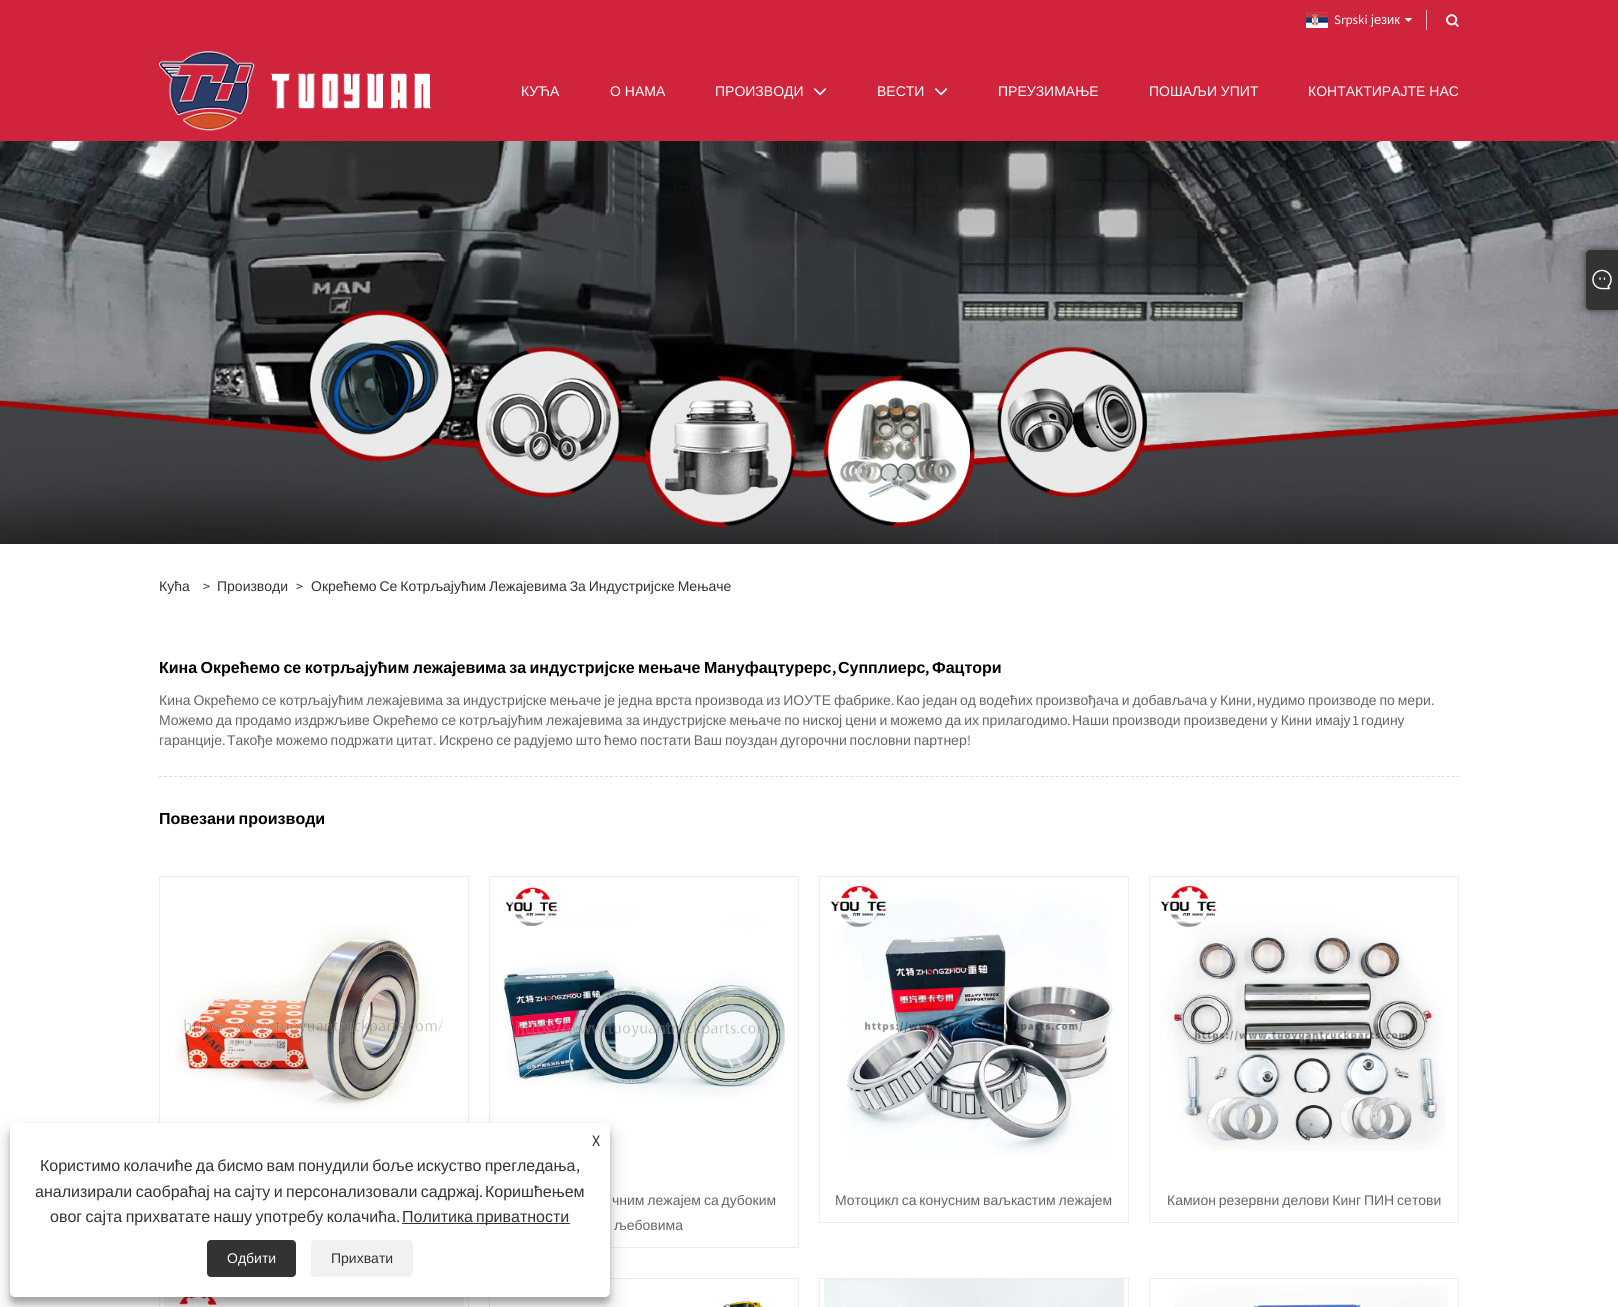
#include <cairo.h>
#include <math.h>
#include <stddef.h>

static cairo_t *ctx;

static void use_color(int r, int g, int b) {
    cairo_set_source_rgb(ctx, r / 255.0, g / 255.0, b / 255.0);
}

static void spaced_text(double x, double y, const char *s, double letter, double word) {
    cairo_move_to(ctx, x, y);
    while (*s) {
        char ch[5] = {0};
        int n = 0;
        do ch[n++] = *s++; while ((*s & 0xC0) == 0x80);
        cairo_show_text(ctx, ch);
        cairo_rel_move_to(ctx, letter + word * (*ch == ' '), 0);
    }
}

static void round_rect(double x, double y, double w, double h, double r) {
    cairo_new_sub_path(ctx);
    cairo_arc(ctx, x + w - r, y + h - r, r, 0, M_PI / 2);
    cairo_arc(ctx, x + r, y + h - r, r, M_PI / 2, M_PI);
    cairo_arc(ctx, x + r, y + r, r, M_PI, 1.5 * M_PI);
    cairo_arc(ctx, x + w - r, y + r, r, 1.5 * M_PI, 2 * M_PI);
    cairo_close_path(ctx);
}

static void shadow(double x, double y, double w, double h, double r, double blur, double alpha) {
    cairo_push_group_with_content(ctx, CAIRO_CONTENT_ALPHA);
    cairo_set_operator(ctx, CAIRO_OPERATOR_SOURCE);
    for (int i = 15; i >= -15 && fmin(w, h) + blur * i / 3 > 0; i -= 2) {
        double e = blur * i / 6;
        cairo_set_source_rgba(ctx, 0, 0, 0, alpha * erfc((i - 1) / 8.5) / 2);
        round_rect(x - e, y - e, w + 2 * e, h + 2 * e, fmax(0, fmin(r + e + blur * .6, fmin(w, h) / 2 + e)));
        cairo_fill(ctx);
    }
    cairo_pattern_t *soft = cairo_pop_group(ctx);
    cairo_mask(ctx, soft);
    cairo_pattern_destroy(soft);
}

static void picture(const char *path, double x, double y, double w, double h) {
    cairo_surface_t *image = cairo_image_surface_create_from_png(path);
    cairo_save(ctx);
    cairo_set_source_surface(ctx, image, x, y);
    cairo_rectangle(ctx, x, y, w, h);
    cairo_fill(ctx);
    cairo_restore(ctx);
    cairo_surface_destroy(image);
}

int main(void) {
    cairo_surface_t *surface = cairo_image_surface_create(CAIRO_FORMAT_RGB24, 1618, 1307);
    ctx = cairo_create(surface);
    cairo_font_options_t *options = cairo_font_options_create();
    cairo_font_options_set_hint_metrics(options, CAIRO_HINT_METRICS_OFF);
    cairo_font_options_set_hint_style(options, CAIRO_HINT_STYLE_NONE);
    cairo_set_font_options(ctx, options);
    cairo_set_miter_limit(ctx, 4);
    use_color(255, 255, 255);
    cairo_paint(ctx);
    use_color(208, 36, 60);
    cairo_rectangle(ctx, 0, 0, 1618, 141);
    cairo_fill(ctx);
    picture("img1.png", 1306, 12, 22, 16);
    cairo_select_font_face(ctx, "Source Sans Pro", CAIRO_FONT_SLANT_NORMAL, CAIRO_FONT_WEIGHT_NORMAL);
    cairo_set_font_size(ctx, 13);
    use_color(255, 255, 255);
    cairo_move_to(ctx, 1334, 24);
    cairo_show_text(ctx, "Srpski");
    cairo_select_font_face(ctx, "Liberation Sans", CAIRO_FONT_SLANT_NORMAL, CAIRO_FONT_WEIGHT_NORMAL);
    cairo_move_to(ctx, 1371, 24);
    cairo_show_text(ctx, "језик");
    picture("img2.png", 1405, 18, 7, 4);
    use_color(241, 189, 197);
    cairo_rectangle(ctx, 1426, 10, 1, 20);
    cairo_fill(ctx);
    picture("img3.png", 1446, 14, 13, 13);
    picture("img4.png", 159, 51, 273, 80);
    cairo_set_font_size(ctx, 14);
    use_color(255, 255, 255);
    cairo_move_to(ctx, 521, 96);
    cairo_show_text(ctx, "КУЋА");
    cairo_move_to(ctx, 610, 96);
    cairo_show_text(ctx, "О НАМА");
    cairo_move_to(ctx, 715, 96);
    cairo_show_text(ctx, "ПРОИЗВОДИ");
    picture("img5.png", 814, 88, 13, 8);
    cairo_move_to(ctx, 877, 96);
    cairo_show_text(ctx, "ВЕСТИ");
    picture("img5.png", 935, 88, 13, 8);
    cairo_move_to(ctx, 998, 96);
    cairo_show_text(ctx, "ПРЕУЗИМАЊЕ");
    cairo_move_to(ctx, 1149, 96);
    cairo_show_text(ctx, "ПОШАЉИ УПИТ");
    cairo_move_to(ctx, 1308, 96);
    cairo_show_text(ctx, "КОНТАКТИРАЈТЕ НАС");
    picture("img6.png", 0, 141, 1618, 403);
    use_color(51, 51, 51);
    cairo_move_to(ctx, 159, 591);
    cairo_show_text(ctx, "Кућа");
    cairo_select_font_face(ctx, "Source Sans Pro", CAIRO_FONT_SLANT_NORMAL, CAIRO_FONT_WEIGHT_NORMAL);
    cairo_move_to(ctx, 203, 591);
    cairo_show_text(ctx, ">");
    cairo_select_font_face(ctx, "Liberation Sans", CAIRO_FONT_SLANT_NORMAL, CAIRO_FONT_WEIGHT_NORMAL);
    cairo_move_to(ctx, 217, 591);
    cairo_show_text(ctx, "Производи");
    cairo_select_font_face(ctx, "Source Sans Pro", CAIRO_FONT_SLANT_NORMAL, CAIRO_FONT_WEIGHT_NORMAL);
    cairo_move_to(ctx, 296, 591);
    cairo_show_text(ctx, ">");
    cairo_select_font_face(ctx, "Liberation Sans", CAIRO_FONT_SLANT_NORMAL, CAIRO_FONT_WEIGHT_NORMAL);
    spaced_text(311, 591, "Окрећемо Се Котрљајућим Лежајевима За Индустријске Мењаче", 0, -1);
    cairo_new_path(ctx);
    cairo_move_to(ctx, 159, 776.5);
    cairo_line_to(ctx, 1459, 776.5);
    use_color(221, 221, 221);
    cairo_set_line_width(ctx, 1);
    cairo_set_dash(ctx, (double[]){3, 2.01}, 2, 0);
    cairo_stroke(ctx);
    cairo_select_font_face(ctx, "Liberation Sans", CAIRO_FONT_SLANT_NORMAL, CAIRO_FONT_WEIGHT_BOLD);
    cairo_set_font_size(ctx, 16);
    use_color(0, 0, 0);
    spaced_text(159, 673, "Кина Окрећемо се котрљајућим лежајевима за индустријске мењаче Мануфацтурерс", 0, -1);
    cairo_select_font_face(ctx, "Source Sans Pro", CAIRO_FONT_SLANT_NORMAL, CAIRO_FONT_WEIGHT_BOLD);
    cairo_move_to(ctx, 832, 673);
    cairo_show_text(ctx, ",");
    cairo_select_font_face(ctx, "Liberation Sans", CAIRO_FONT_SLANT_NORMAL, CAIRO_FONT_WEIGHT_BOLD);
    cairo_move_to(ctx, 838, 673);
    cairo_show_text(ctx, "Супплиерс");
    cairo_select_font_face(ctx, "Source Sans Pro", CAIRO_FONT_SLANT_NORMAL, CAIRO_FONT_WEIGHT_BOLD);
    cairo_move_to(ctx, 925, 673);
    cairo_show_text(ctx, ",");
    cairo_select_font_face(ctx, "Liberation Sans", CAIRO_FONT_SLANT_NORMAL, CAIRO_FONT_WEIGHT_BOLD);
    cairo_move_to(ctx, 932, 673);
    cairo_show_text(ctx, "Фацтори");
    cairo_select_font_face(ctx, "Liberation Sans", CAIRO_FONT_SLANT_NORMAL, CAIRO_FONT_WEIGHT_NORMAL);
    cairo_set_font_size(ctx, 14);
    use_color(102, 102, 102);
    spaced_text(159, 705, "Кина Окрећемо се котрљајућим лежајевима за индустријске мењаче је једна врста производа из ИОУТЕ фабрике", 0, -1);
    cairo_select_font_face(ctx, "Source Sans Pro", CAIRO_FONT_SLANT_NORMAL, CAIRO_FONT_WEIGHT_NORMAL);
    cairo_move_to(ctx, 891, 705);
    cairo_show_text(ctx, ".");
    cairo_select_font_face(ctx, "Liberation Sans", CAIRO_FONT_SLANT_NORMAL, CAIRO_FONT_WEIGHT_NORMAL);
    spaced_text(896, 705, "Као један од водећих произвођача и добављача у Кини", 0, -1);
    cairo_select_font_face(ctx, "Source Sans Pro", CAIRO_FONT_SLANT_NORMAL, CAIRO_FONT_WEIGHT_NORMAL);
    cairo_move_to(ctx, 1252, 705);
    cairo_show_text(ctx, ",");
    cairo_select_font_face(ctx, "Liberation Sans", CAIRO_FONT_SLANT_NORMAL, CAIRO_FONT_WEIGHT_NORMAL);
    spaced_text(1257, 705, "нудимо производе по мери", 0, -1);
    cairo_select_font_face(ctx, "Source Sans Pro", CAIRO_FONT_SLANT_NORMAL, CAIRO_FONT_WEIGHT_NORMAL);
    cairo_move_to(ctx, 1431, 705);
    cairo_show_text(ctx, ".");
    cairo_select_font_face(ctx, "Liberation Sans", CAIRO_FONT_SLANT_NORMAL, CAIRO_FONT_WEIGHT_NORMAL);
    spaced_text(159, 725, "Можемо да продамо издржљиве Окрећемо се котрљајућим лежајевима за индустријске мењаче по ниској цени и можемо да их прилагодимо", 0, -0.9);
    cairo_select_font_face(ctx, "Source Sans Pro", CAIRO_FONT_SLANT_NORMAL, CAIRO_FONT_WEIGHT_NORMAL);
    cairo_move_to(ctx, 1067, 725);
    cairo_show_text(ctx, ".");
    cairo_select_font_face(ctx, "Liberation Sans", CAIRO_FONT_SLANT_NORMAL, CAIRO_FONT_WEIGHT_NORMAL);
    spaced_text(1072, 725, "Наши производи произведени у Кини имају", 0, -0.9);
    cairo_select_font_face(ctx, "Source Sans Pro", CAIRO_FONT_SLANT_NORMAL, CAIRO_FONT_WEIGHT_NORMAL);
    cairo_move_to(ctx, 1352, 725);
    cairo_show_text(ctx, "1");
    cairo_select_font_face(ctx, "Liberation Sans", CAIRO_FONT_SLANT_NORMAL, CAIRO_FONT_WEIGHT_NORMAL);
    cairo_move_to(ctx, 1361, 725);
    cairo_show_text(ctx, "годину");
    cairo_move_to(ctx, 159, 745);
    cairo_show_text(ctx, "гаранције");
    cairo_select_font_face(ctx, "Source Sans Pro", CAIRO_FONT_SLANT_NORMAL, CAIRO_FONT_WEIGHT_NORMAL);
    cairo_move_to(ctx, 222, 745);
    cairo_show_text(ctx, ".");
    cairo_select_font_face(ctx, "Liberation Sans", CAIRO_FONT_SLANT_NORMAL, CAIRO_FONT_WEIGHT_NORMAL);
    spaced_text(227, 745, "Такође можемо подржати цитат", 0, -1);
    cairo_select_font_face(ctx, "Source Sans Pro", CAIRO_FONT_SLANT_NORMAL, CAIRO_FONT_WEIGHT_NORMAL);
    cairo_move_to(ctx, 433, 745);
    cairo_show_text(ctx, ".");
    cairo_select_font_face(ctx, "Liberation Sans", CAIRO_FONT_SLANT_NORMAL, CAIRO_FONT_WEIGHT_NORMAL);
    spaced_text(439, 745, "Искрено се радујемо што ћемо постати Ваш поуздан дугорочни пословни партнер", 0, -1);
    cairo_select_font_face(ctx, "Source Sans Pro", CAIRO_FONT_SLANT_NORMAL, CAIRO_FONT_WEIGHT_NORMAL);
    cairo_move_to(ctx, 967, 745);
    cairo_show_text(ctx, "!");
    cairo_select_font_face(ctx, "Liberation Sans", CAIRO_FONT_SLANT_NORMAL, CAIRO_FONT_WEIGHT_BOLD);
    cairo_set_font_size(ctx, 16);
    use_color(0, 0, 0);
    spaced_text(159, 824, "Повезани производи", 0, -1.25);
    cairo_rectangle(ctx, 159.5, 876.5, 309, 346);
    use_color(237, 237, 237);
    cairo_set_dash(ctx, NULL, 0, 0);
    cairo_stroke(ctx);
    picture("img7.png", 175, 925, 268, 186);
    cairo_rectangle(ctx, 489.5, 876.5, 309, 371);
    cairo_stroke(ctx);
    picture("img8.png", 500, 883, 285, 216);
    cairo_select_font_face(ctx, "Liberation Sans", CAIRO_FONT_SLANT_NORMAL, CAIRO_FONT_WEIGHT_NORMAL);
    cairo_set_font_size(ctx, 14);
    use_color(102, 102, 102);
    spaced_text(612, 1205, "чним лежајем са дубоким", 0, -1);
    cairo_move_to(ctx, 614, 1230);
    cairo_show_text(ctx, "љебовима");
    cairo_rectangle(ctx, 819.5, 876.5, 309, 346);
    use_color(237, 237, 237);
    cairo_stroke(ctx);
    picture("img9.png", 830, 883, 283, 272);
    use_color(102, 102, 102);
    spaced_text(835, 1205, "Мотоцикл са конусним ваљкастим лежајем", 0, -1);
    cairo_rectangle(ctx, 1149.5, 876.5, 309, 346);
    use_color(237, 237, 237);
    cairo_stroke(ctx);
    picture("img10.png", 1160, 883, 286, 268);
    use_color(102, 102, 102);
    spaced_text(1167, 1205, "Камион резервни делови Кинг ПИН сетови", 0, -1);
    cairo_rectangle(ctx, 159.5, 1278.5, 309, 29);
    use_color(237, 237, 237);
    cairo_stroke(ctx);
    picture("img11.png", 164, 1297, 300, 10);
    cairo_rectangle(ctx, 489.5, 1278.5, 309, 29);
    cairo_stroke(ctx);
    picture("img12.png", 723, 1298, 52, 9);
    cairo_rectangle(ctx, 819.5, 1278.5, 309, 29);
    cairo_stroke(ctx);
    picture("img13.png", 824, 1279, 300, 28);
    cairo_rectangle(ctx, 1149.5, 1278.5, 309, 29);
    cairo_stroke(ctx);
    picture("img14.png", 1175, 1285, 273, 22);
    use_color(51, 51, 51);
    shadow(1586, 250, 32, 60, 4, 4, 1);
    use_color(51, 51, 51);
    cairo_new_path(ctx);
    cairo_move_to(ctx, 1590, 250);
    cairo_line_to(ctx, 1618, 250);
    cairo_line_to(ctx, 1618, 310);
    cairo_line_to(ctx, 1590, 310);
    cairo_curve_to(ctx, 1588, 310, 1586, 308, 1586, 306);
    cairo_line_to(ctx, 1586, 254);
    cairo_curve_to(ctx, 1586, 252, 1588, 250, 1590, 250);
    cairo_close_path(ctx);
    cairo_fill(ctx);
    picture("img15.png", 1592, 269, 20, 21);
    use_color(0, 0, 0);
    shadow(10, 1129, 600, 174, 5, 3, 0.23);
    shadow(10, 1133, 600, 174, 5, 10, 0.19);
    use_color(255, 255, 255);
    round_rect(10, 1123, 600, 174, 5);
    cairo_fill(ctx);
    cairo_select_font_face(ctx, "Source Sans Pro", CAIRO_FONT_SLANT_NORMAL, CAIRO_FONT_WEIGHT_NORMAL);
    cairo_set_font_size(ctx, 16);
    use_color(51, 51, 51);
    cairo_move_to(ctx, 592, 1146);
    cairo_show_text(ctx, "X");
    cairo_select_font_face(ctx, "Liberation Sans", CAIRO_FONT_SLANT_NORMAL, CAIRO_FONT_WEIGHT_NORMAL);
    spaced_text(40, 1171, "Користимо колачиће да бисмо вам понудили боље искуство прегледања", 0, -1.25);
    cairo_select_font_face(ctx, "Source Sans Pro", CAIRO_FONT_SLANT_NORMAL, CAIRO_FONT_WEIGHT_NORMAL);
    cairo_move_to(ctx, 576, 1171);
    cairo_show_text(ctx, ",");
    cairo_select_font_face(ctx, "Liberation Sans", CAIRO_FONT_SLANT_NORMAL, CAIRO_FONT_WEIGHT_NORMAL);
    spaced_text(35, 1197, "анализирали саобраћај на сајту и персонализовали садржај", 0, -1);
    cairo_select_font_face(ctx, "Source Sans Pro", CAIRO_FONT_SLANT_NORMAL, CAIRO_FONT_WEIGHT_NORMAL);
    cairo_move_to(ctx, 479, 1197);
    cairo_show_text(ctx, ".");
    cairo_select_font_face(ctx, "Liberation Sans", CAIRO_FONT_SLANT_NORMAL, CAIRO_FONT_WEIGHT_NORMAL);
    cairo_move_to(ctx, 485, 1197);
    cairo_show_text(ctx, "Коришћењем");
    spaced_text(50, 1222, "овог сајта прихватате нашу употребу колачића", 0, -1);
    cairo_select_font_face(ctx, "Source Sans Pro", CAIRO_FONT_SLANT_NORMAL, CAIRO_FONT_WEIGHT_NORMAL);
    cairo_move_to(ctx, 396, 1222);
    cairo_show_text(ctx, ".");
    cairo_rectangle(ctx, 402, 1223, 168, 1);
    cairo_fill(ctx);
    cairo_select_font_face(ctx, "Liberation Sans", CAIRO_FONT_SLANT_NORMAL, CAIRO_FONT_WEIGHT_NORMAL);
    spaced_text(402, 1222, "Политика приватности", 0, -1.25);
    round_rect(207, 1240, 89, 37, 4);
    cairo_fill(ctx);
    cairo_set_font_size(ctx, 14);
    use_color(255, 255, 255);
    cairo_move_to(ctx, 227, 1263);
    cairo_show_text(ctx, "Одбити");
    use_color(241, 241, 241);
    round_rect(311, 1240, 102, 37, 4);
    cairo_fill(ctx);
    use_color(51, 51, 51);
    cairo_move_to(ctx, 331, 1263);
    cairo_show_text(ctx, "Прихвати");
    cairo_surface_write_to_png(surface, "result.png");
    cairo_font_options_destroy(options);
    cairo_destroy(ctx);
    cairo_surface_destroy(surface);
    return 0;
}
